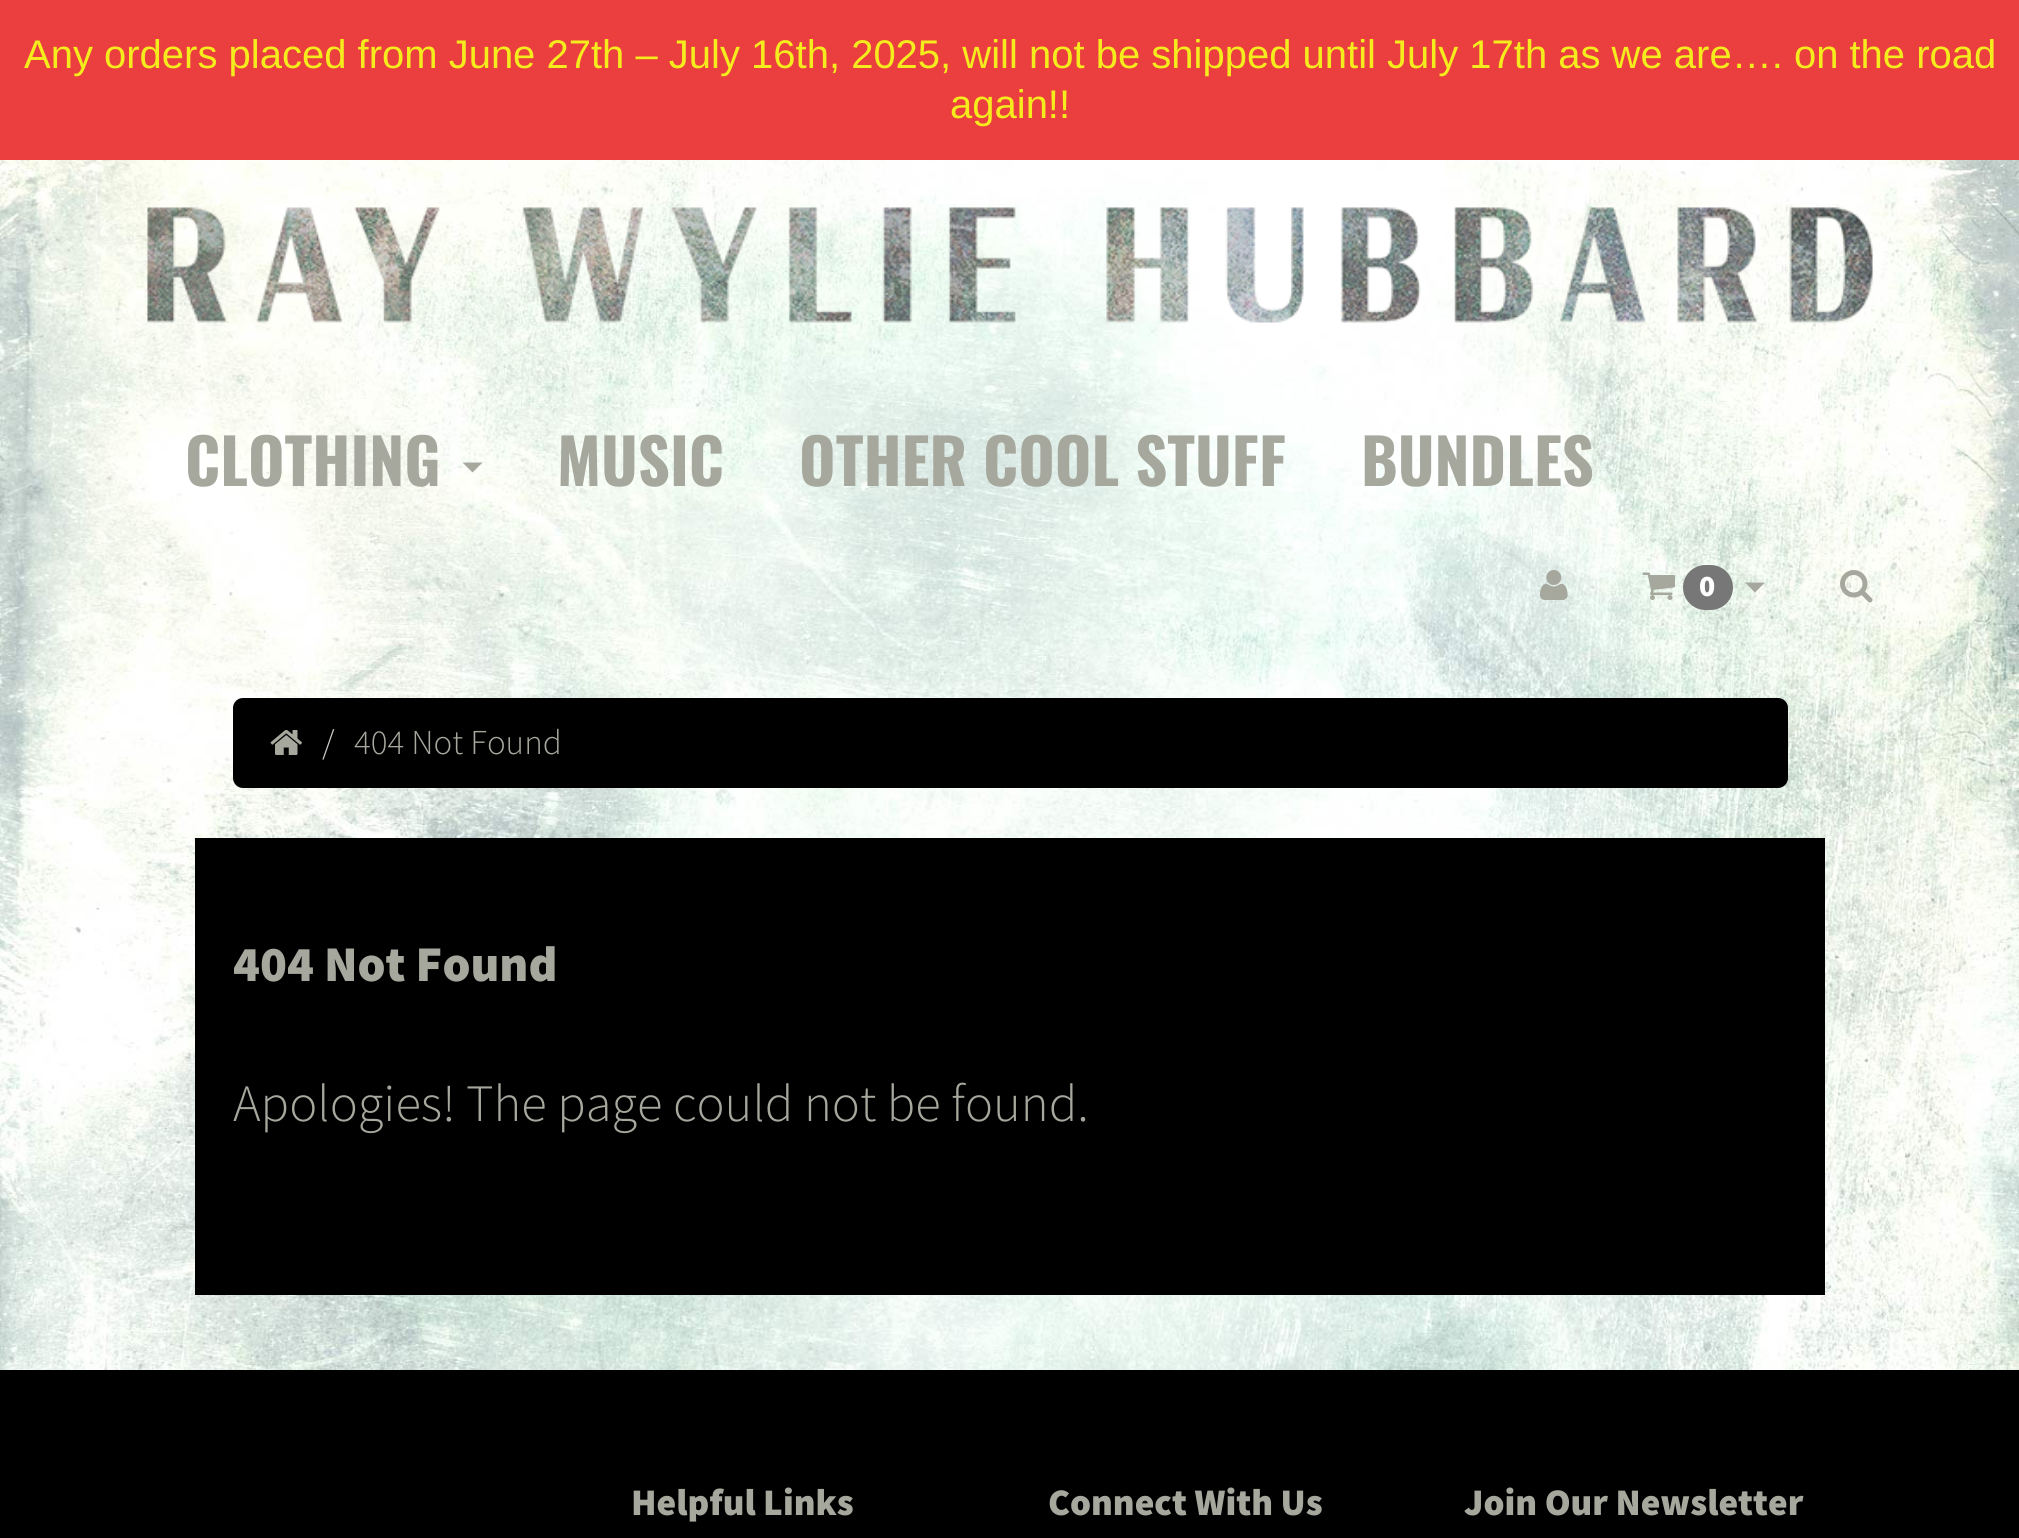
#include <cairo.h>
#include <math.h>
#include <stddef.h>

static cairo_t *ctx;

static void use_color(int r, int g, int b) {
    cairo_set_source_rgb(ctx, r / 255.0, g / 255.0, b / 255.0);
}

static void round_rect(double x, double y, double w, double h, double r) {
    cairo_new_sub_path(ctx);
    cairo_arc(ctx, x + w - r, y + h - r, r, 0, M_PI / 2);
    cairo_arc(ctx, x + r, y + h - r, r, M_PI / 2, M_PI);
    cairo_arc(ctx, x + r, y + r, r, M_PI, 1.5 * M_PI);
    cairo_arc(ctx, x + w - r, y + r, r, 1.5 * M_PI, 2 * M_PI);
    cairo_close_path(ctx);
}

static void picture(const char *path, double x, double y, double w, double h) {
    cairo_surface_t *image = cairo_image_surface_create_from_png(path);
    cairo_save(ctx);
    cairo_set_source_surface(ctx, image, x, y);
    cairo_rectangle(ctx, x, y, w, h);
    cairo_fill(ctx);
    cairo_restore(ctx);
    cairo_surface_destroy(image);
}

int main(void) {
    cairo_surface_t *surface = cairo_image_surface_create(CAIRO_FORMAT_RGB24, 2019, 1538);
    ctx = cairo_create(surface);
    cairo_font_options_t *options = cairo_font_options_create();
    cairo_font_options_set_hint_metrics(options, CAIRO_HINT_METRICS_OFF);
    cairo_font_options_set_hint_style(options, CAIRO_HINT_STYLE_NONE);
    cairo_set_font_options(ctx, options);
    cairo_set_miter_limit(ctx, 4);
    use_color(255, 255, 255);
    cairo_paint(ctx);
    picture("img1.png", 0, 160, 2019, 1210);
    use_color(235, 62, 62);
    cairo_rectangle(ctx, 0, 0, 2019, 160);
    cairo_fill(ctx);
    cairo_select_font_face(ctx, "Liberation Sans", CAIRO_FONT_SLANT_NORMAL, CAIRO_FONT_WEIGHT_NORMAL);
    cairo_set_font_size(ctx, 40);
    use_color(245, 236, 29);
    cairo_move_to(ctx, 24, 68);
    cairo_show_text(ctx, "Any orders placed from June 27th – July 16th, 2025, will not be shipped until July 17th as we are…. on the road");
    cairo_move_to(ctx, 950, 118);
    cairo_show_text(ctx, "again!!");
    picture("img2.png", 147, 207, 1726, 116);
    cairo_select_font_face(ctx, "Oswald", CAIRO_FONT_SLANT_NORMAL, CAIRO_FONT_WEIGHT_BOLD);
    cairo_set_font_size(ctx, 62.5);
    use_color(166, 168, 157);
    cairo_move_to(ctx, 185, 486);
    cairo_show_text(ctx, "CLOTHING");
    cairo_new_path(ctx);
    cairo_move_to(ctx, 462.5, 462.5);
    cairo_line_to(ctx, 482.5, 462.5);
    cairo_line_to(ctx, 472.5, 472.5);
    cairo_close_path(ctx);
    cairo_fill(ctx);
    cairo_move_to(ctx, 557, 486);
    cairo_show_text(ctx, "MUSIC");
    cairo_move_to(ctx, 799, 486);
    cairo_show_text(ctx, "OTHER COOL STUFF");
    cairo_move_to(ctx, 1361, 486);
    cairo_show_text(ctx, "BUNDLES");
    picture("img3.png", 1540, 570, 28, 30);
    picture("img4.png", 1642, 572, 33, 28);
    use_color(119, 119, 119);
    round_rect(1683, 565, 50, 45, 22.5);
    cairo_fill(ctx);
    cairo_select_font_face(ctx, "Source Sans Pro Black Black", CAIRO_FONT_SLANT_NORMAL, CAIRO_FONT_WEIGHT_NORMAL);
    cairo_set_font_size(ctx, 30);
    use_color(255, 255, 255);
    cairo_move_to(ctx, 1699, 596);
    cairo_show_text(ctx, "0");
    use_color(166, 168, 157);
    cairo_new_path(ctx);
    cairo_move_to(ctx, 1745, 582.5);
    cairo_line_to(ctx, 1765, 582.5);
    cairo_line_to(ctx, 1755, 592.5);
    cairo_close_path(ctx);
    cairo_fill(ctx);
    picture("img5.png", 1840, 570, 33, 33);
    use_color(0, 0, 0);
    round_rect(233, 698, 1555, 90, 10);
    cairo_fill(ctx);
    picture("img6.png", 270, 730, 32, 25);
    cairo_select_font_face(ctx, "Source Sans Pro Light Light", CAIRO_FONT_SLANT_NORMAL, CAIRO_FONT_WEIGHT_NORMAL);
    cairo_set_font_size(ctx, 35);
    use_color(203, 204, 198);
    cairo_move_to(ctx, 322, 754);
    cairo_show_text(ctx, "/");
    use_color(166, 168, 157);
    cairo_move_to(ctx, 354, 754);
    cairo_show_text(ctx, "404 Not Found");
    use_color(0, 0, 0);
    cairo_rectangle(ctx, 195, 838, 1630, 457);
    cairo_fill(ctx);
    cairo_select_font_face(ctx, "Source Sans Pro Black Black", CAIRO_FONT_SLANT_NORMAL, CAIRO_FONT_WEIGHT_NORMAL);
    cairo_set_font_size(ctx, 50);
    use_color(166, 168, 157);
    cairo_move_to(ctx, 233, 981);
    cairo_show_text(ctx, "404 Not Found");
    cairo_select_font_face(ctx, "Source Sans Pro Light Light", CAIRO_FONT_SLANT_NORMAL, CAIRO_FONT_WEIGHT_NORMAL);
    cairo_set_font_size(ctx, 52.5);
    cairo_move_to(ctx, 233, 1121);
    cairo_show_text(ctx, "Apologies! The page could not be found.");
    use_color(0, 0, 0);
    cairo_rectangle(ctx, 0, 1370, 2019, 168);
    cairo_fill(ctx);
    cairo_select_font_face(ctx, "Source Sans Pro Black Black", CAIRO_FONT_SLANT_NORMAL, CAIRO_FONT_WEIGHT_NORMAL);
    cairo_set_font_size(ctx, 37.5);
    use_color(166, 168, 157);
    cairo_move_to(ctx, 631, 1515);
    cairo_show_text(ctx, "Helpful Links");
    cairo_move_to(ctx, 1048, 1515);
    cairo_show_text(ctx, "Connect With Us");
    cairo_move_to(ctx, 1464, 1515);
    cairo_show_text(ctx, "Join Our Newsletter");
    cairo_surface_write_to_png(surface, "result.png");
    cairo_font_options_destroy(options);
    cairo_destroy(ctx);
    cairo_surface_destroy(surface);
    return 0;
}
